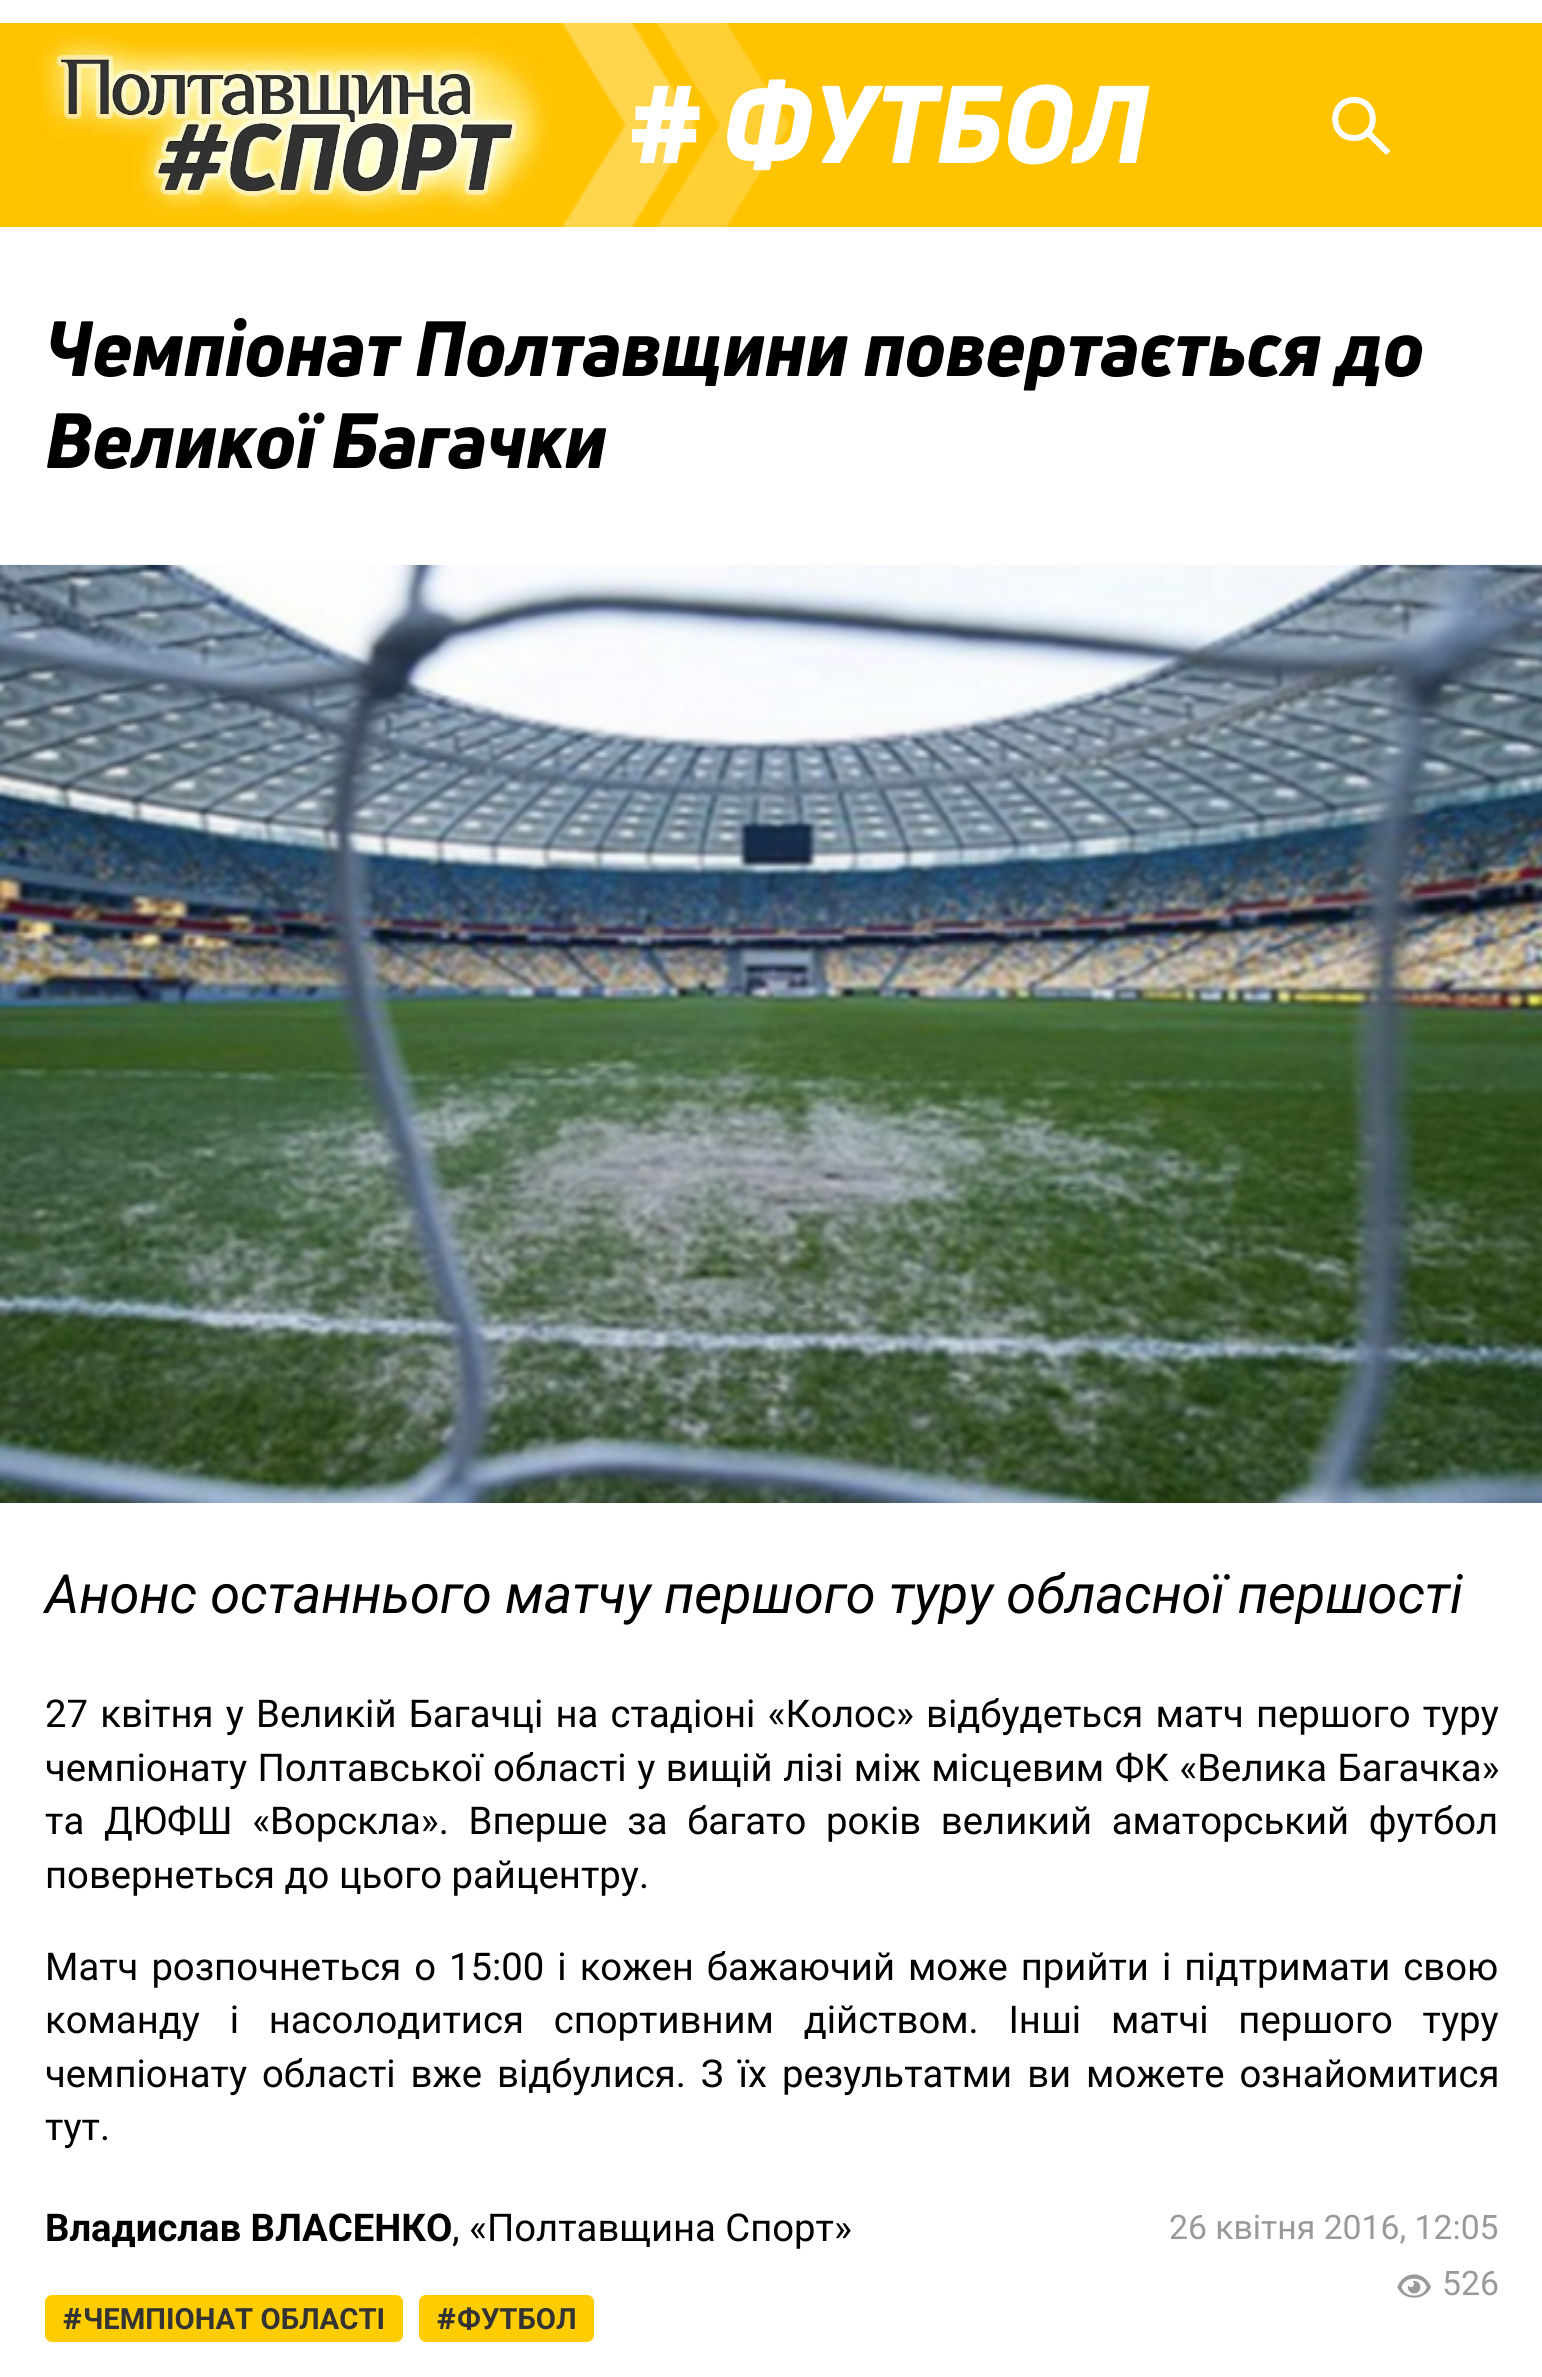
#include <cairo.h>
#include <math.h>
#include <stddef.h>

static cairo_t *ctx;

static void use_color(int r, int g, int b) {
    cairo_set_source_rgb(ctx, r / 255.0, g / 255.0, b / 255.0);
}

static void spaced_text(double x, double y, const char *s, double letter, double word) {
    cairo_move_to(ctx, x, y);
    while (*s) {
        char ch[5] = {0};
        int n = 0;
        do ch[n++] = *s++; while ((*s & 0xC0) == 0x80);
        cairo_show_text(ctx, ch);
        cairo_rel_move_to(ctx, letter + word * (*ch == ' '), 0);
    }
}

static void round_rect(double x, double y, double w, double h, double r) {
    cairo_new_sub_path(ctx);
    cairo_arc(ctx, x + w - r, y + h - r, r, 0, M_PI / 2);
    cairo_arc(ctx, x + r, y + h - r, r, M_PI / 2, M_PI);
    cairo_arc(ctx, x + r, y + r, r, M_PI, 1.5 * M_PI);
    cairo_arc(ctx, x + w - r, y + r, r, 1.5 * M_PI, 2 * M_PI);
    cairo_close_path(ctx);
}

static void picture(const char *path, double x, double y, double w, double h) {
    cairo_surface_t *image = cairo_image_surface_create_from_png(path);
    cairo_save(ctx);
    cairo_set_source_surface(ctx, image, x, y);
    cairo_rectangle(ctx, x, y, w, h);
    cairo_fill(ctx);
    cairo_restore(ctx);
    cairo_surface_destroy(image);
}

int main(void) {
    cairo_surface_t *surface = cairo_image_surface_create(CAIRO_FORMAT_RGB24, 1542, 2377);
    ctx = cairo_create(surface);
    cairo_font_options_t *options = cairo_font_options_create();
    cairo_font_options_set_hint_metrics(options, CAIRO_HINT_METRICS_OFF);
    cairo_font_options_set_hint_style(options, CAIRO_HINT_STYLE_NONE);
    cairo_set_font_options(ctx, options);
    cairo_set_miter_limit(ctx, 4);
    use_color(255, 255, 255);
    cairo_paint(ctx);
    use_color(255, 195, 0);
    cairo_rectangle(ctx, 0, 23, 1542, 204);
    cairo_fill(ctx);
    picture("img1.png", 561, 23, 229, 204);
    picture("img2.png", 38, 33, 513, 185);
    cairo_select_font_face(ctx, "Noto Sans Black", CAIRO_FONT_SLANT_NORMAL, CAIRO_FONT_WEIGHT_NORMAL);
    cairo_set_font_size(ctx, 108);
    use_color(255, 255, 255);
    cairo_move_to(ctx, 630, 163);
    cairo_show_text(ctx, "#");
    cairo_select_font_face(ctx, "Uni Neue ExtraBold", CAIRO_FONT_SLANT_ITALIC, CAIRO_FONT_WEIGHT_NORMAL);
    cairo_move_to(ctx, 722, 163);
    cairo_show_text(ctx, "ФУТБОЛ");
    cairo_new_path(ctx);
    cairo_move_to(ctx, 1354, 141);
    cairo_curve_to(ctx, 1325, 141, 1325, 97, 1354, 97);
    cairo_curve_to(ctx, 1383, 97, 1383, 141, 1354, 141);
    cairo_close_path(ctx);
    cairo_move_to(ctx, 1354, 103);
    cairo_curve_to(ctx, 1333, 103, 1333, 135, 1354, 135);
    cairo_curve_to(ctx, 1375, 135, 1375, 103, 1354, 103);
    cairo_close_path(ctx);
    cairo_fill(ctx);
    cairo_new_path(ctx);
    cairo_move_to(ctx, 1386, 155);
    cairo_line_to(ctx, 1363.5, 132.5);
    cairo_line_to(ctx, 1367.5, 128);
    cairo_line_to(ctx, 1390.5, 151);
    cairo_close_path(ctx);
    cairo_fill(ctx);
    cairo_set_font_size(ctx, 76.5);
    use_color(0, 0, 0);
    cairo_move_to(ctx, 45, 376);
    cairo_show_text(ctx, "Чемпіонат Полтавщини повертається до");
    cairo_move_to(ctx, 45, 468);
    cairo_show_text(ctx, "Великої Багачки");
    picture("img3.png", 0, 564, 1542, 939);
    cairo_select_font_face(ctx, "Roboto", CAIRO_FONT_SLANT_ITALIC, CAIRO_FONT_WEIGHT_NORMAL);
    cairo_set_font_size(ctx, 54);
    cairo_move_to(ctx, 45, 1613);
    cairo_show_text(ctx, "Анонс останнього матчу першого туру обласної першості");
    cairo_select_font_face(ctx, "Roboto", CAIRO_FONT_SLANT_NORMAL, CAIRO_FONT_WEIGHT_NORMAL);
    cairo_set_font_size(ctx, 38.25);
    spaced_text(45, 1727, "27 квітня у Великій Багачці на стадіоні «Колос» відбудеться матч першого туру", 0, 2.75);
    spaced_text(45, 1781, "чемпіонату Полтавської області у вищій лізі між місцевим ФК «Велика Багачка»", 0, 1);
    spaced_text(45, 1834, "та ДЮФШ «Ворскла». Вперше за багато років великий аматорський футбол", 0, 10.25);
    cairo_move_to(ctx, 45, 1888);
    cairo_show_text(ctx, "повернеться до цього райцентру.");
    spaced_text(45, 1980, "Матч розпочнеться о 15:00 і кожен бажаючий може прийти і підтримати свою", 0, 3.5);
    spaced_text(45, 2033, "команду і насолодитися спортивним дійством. Інші матчі першого туру", 0, 20.25);
    spaced_text(45, 2087, "чемпіонату області вже відбулися. З їх результатми ви можете ознайомитися", 0, 5.5);
    cairo_move_to(ctx, 45, 2140);
    cairo_show_text(ctx, "тут.");
    cairo_select_font_face(ctx, "Roboto", CAIRO_FONT_SLANT_NORMAL, CAIRO_FONT_WEIGHT_BOLD);
    cairo_move_to(ctx, 45, 2241);
    cairo_show_text(ctx, "Владислав ВЛАСЕНКО");
    cairo_select_font_face(ctx, "Roboto", CAIRO_FONT_SLANT_NORMAL, CAIRO_FONT_WEIGHT_NORMAL);
    cairo_move_to(ctx, 452, 2241);
    cairo_show_text(ctx, ", «Полтавщина Спорт»");
    use_color(255, 204, 0);
    round_rect(45, 2295, 358, 47, 7);
    cairo_fill(ctx);
    cairo_select_font_face(ctx, "Noto Sans", CAIRO_FONT_SLANT_NORMAL, CAIRO_FONT_WEIGHT_BOLD);
    cairo_set_font_size(ctx, 29.25);
    use_color(51, 51, 51);
    cairo_move_to(ctx, 63, 2329);
    cairo_show_text(ctx, "#");
    cairo_select_font_face(ctx, "Roboto", CAIRO_FONT_SLANT_NORMAL, CAIRO_FONT_WEIGHT_BOLD);
    cairo_move_to(ctx, 83, 2329);
    cairo_show_text(ctx, "ЧЕМПІОНАТ ОБЛАСТІ");
    use_color(255, 204, 0);
    round_rect(419, 2295, 175, 47, 7);
    cairo_fill(ctx);
    cairo_select_font_face(ctx, "Noto Sans", CAIRO_FONT_SLANT_NORMAL, CAIRO_FONT_WEIGHT_BOLD);
    use_color(51, 51, 51);
    cairo_move_to(ctx, 437, 2329);
    cairo_show_text(ctx, "#");
    cairo_select_font_face(ctx, "Roboto", CAIRO_FONT_SLANT_NORMAL, CAIRO_FONT_WEIGHT_BOLD);
    cairo_move_to(ctx, 457, 2329);
    cairo_show_text(ctx, "ФУТБОЛ");
    cairo_select_font_face(ctx, "Roboto", CAIRO_FONT_SLANT_NORMAL, CAIRO_FONT_WEIGHT_NORMAL);
    cairo_set_font_size(ctx, 33.75);
    use_color(153, 153, 153);
    cairo_move_to(ctx, 1169, 2239);
    cairo_show_text(ctx, "26 квітня 2016, 12:05");
    picture("img4.png", 1397, 2274, 34, 24);
    cairo_move_to(ctx, 1442, 2295);
    cairo_show_text(ctx, "526");
    cairo_surface_write_to_png(surface, "result.png");
    cairo_font_options_destroy(options);
    cairo_destroy(ctx);
    cairo_surface_destroy(surface);
    return 0;
}
